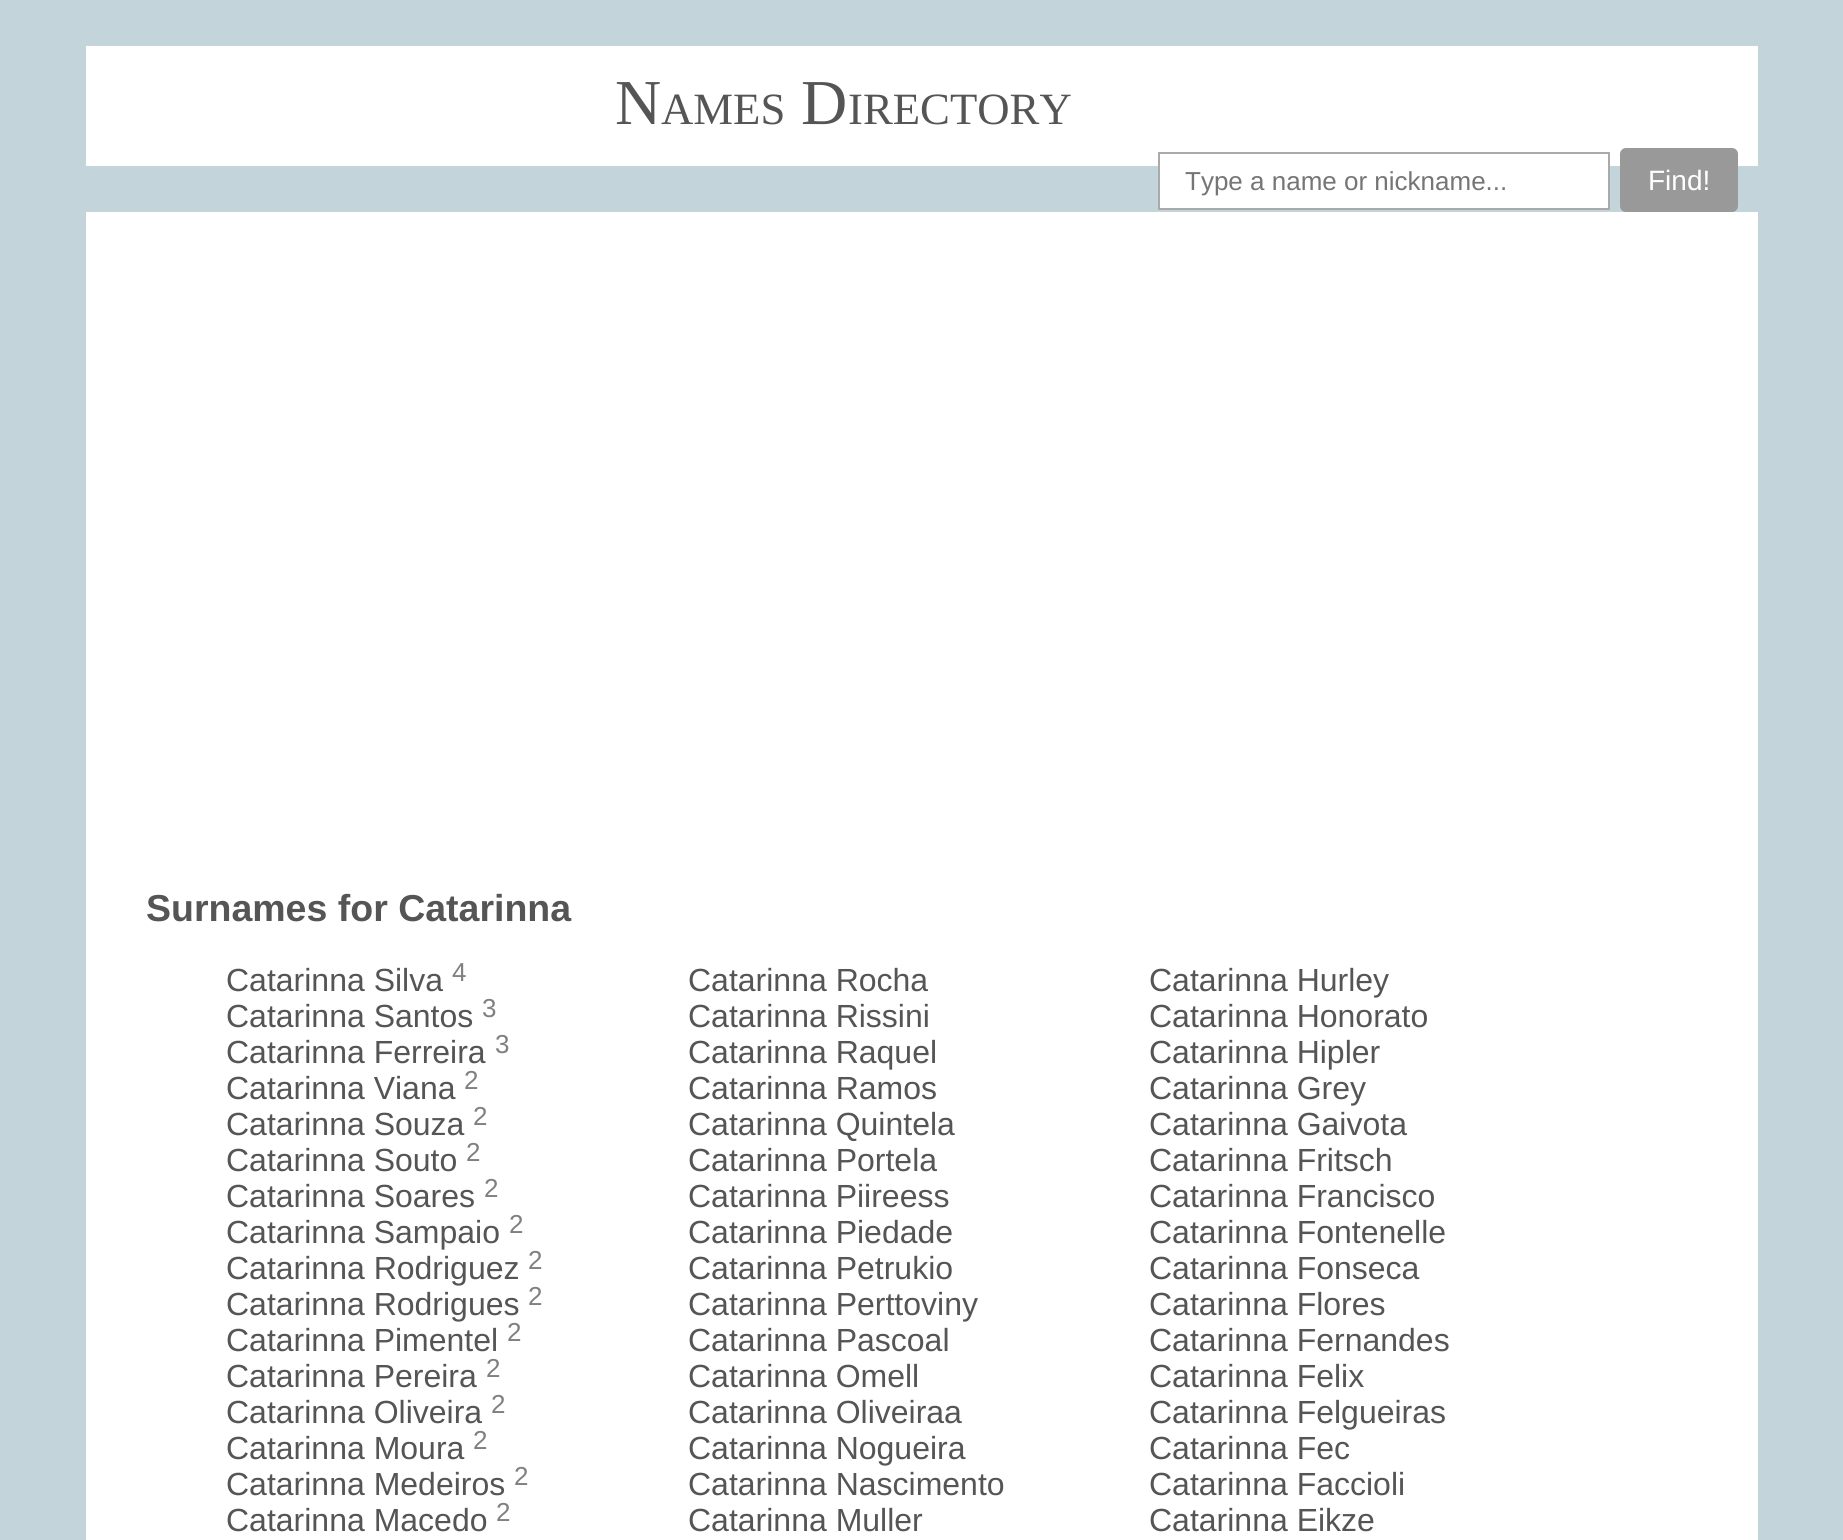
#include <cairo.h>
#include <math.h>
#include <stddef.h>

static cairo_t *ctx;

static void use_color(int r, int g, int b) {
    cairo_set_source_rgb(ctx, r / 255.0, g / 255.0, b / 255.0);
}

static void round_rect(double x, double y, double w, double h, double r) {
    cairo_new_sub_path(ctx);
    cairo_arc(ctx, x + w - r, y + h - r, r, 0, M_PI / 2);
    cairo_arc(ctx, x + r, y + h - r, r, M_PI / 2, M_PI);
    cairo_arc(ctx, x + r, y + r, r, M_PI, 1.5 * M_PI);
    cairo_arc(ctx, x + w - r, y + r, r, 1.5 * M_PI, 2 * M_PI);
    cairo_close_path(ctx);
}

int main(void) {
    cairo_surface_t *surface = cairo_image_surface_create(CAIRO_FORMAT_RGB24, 1843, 1540);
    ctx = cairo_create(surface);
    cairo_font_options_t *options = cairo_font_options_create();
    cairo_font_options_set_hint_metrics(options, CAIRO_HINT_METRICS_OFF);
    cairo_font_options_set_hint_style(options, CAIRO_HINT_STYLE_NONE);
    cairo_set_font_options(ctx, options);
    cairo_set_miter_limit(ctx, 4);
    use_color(195, 213, 219);
    cairo_paint(ctx);
    use_color(255, 255, 255);
    cairo_rectangle(ctx, 86, 46, 1672, 120);
    cairo_fill(ctx);
    cairo_select_font_face(ctx, "Liberation Serif", CAIRO_FONT_SLANT_NORMAL, CAIRO_FONT_WEIGHT_NORMAL);
    cairo_set_font_size(ctx, 64);
    use_color(85, 85, 85);
    cairo_move_to(ctx, 615, 124);
    cairo_show_text(ctx, "N");
    cairo_set_font_size(ctx, 44.75);
    cairo_move_to(ctx, 661, 124);
    cairo_show_text(ctx, "AMES");
    cairo_set_font_size(ctx, 64);
    cairo_move_to(ctx, 801, 124);
    cairo_show_text(ctx, "D");
    cairo_set_font_size(ctx, 44.75);
    cairo_move_to(ctx, 848, 124);
    cairo_show_text(ctx, "IRECTORY");
    use_color(255, 255, 255);
    cairo_rectangle(ctx, 1160, 166, 448, 42);
    cairo_fill(ctx);
    cairo_rectangle(ctx, 1159, 153, 450, 56);
    use_color(170, 170, 170);
    cairo_stroke(ctx);
    cairo_select_font_face(ctx, "Liberation Sans", CAIRO_FONT_SLANT_NORMAL, CAIRO_FONT_WEIGHT_NORMAL);
    cairo_set_font_size(ctx, 26);
    use_color(117, 117, 117);
    cairo_move_to(ctx, 1185, 190);
    cairo_show_text(ctx, "Type a name or nickname...");
    use_color(153, 153, 153);
    round_rect(1621, 149, 116, 62, 5);
    cairo_fill_preserve(ctx);
    cairo_stroke(ctx);
    cairo_set_font_size(ctx, 28);
    use_color(255, 255, 255);
    cairo_move_to(ctx, 1648, 190);
    cairo_show_text(ctx, "Find!");
    cairo_rectangle(ctx, 86, 212, 1672, 1328);
    cairo_fill(ctx);
    cairo_select_font_face(ctx, "Liberation Sans", CAIRO_FONT_SLANT_NORMAL, CAIRO_FONT_WEIGHT_BOLD);
    cairo_set_font_size(ctx, 37.5);
    use_color(85, 85, 85);
    cairo_move_to(ctx, 146, 921);
    cairo_show_text(ctx, "Surnames for Catarinna");
    cairo_select_font_face(ctx, "Liberation Sans", CAIRO_FONT_SLANT_NORMAL, CAIRO_FONT_WEIGHT_NORMAL);
    cairo_set_font_size(ctx, 32);
    cairo_move_to(ctx, 226, 991);
    cairo_show_text(ctx, "Catarinna Silva");
    cairo_set_font_size(ctx, 26);
    use_color(128, 128, 128);
    cairo_move_to(ctx, 452, 981);
    cairo_show_text(ctx, "4");
    cairo_set_font_size(ctx, 32);
    use_color(85, 85, 85);
    cairo_move_to(ctx, 688, 991);
    cairo_show_text(ctx, "Catarinna Rocha");
    cairo_move_to(ctx, 1149, 991);
    cairo_show_text(ctx, "Catarinna Hurley");
    cairo_move_to(ctx, 226, 1027);
    cairo_show_text(ctx, "Catarinna Santos");
    cairo_set_font_size(ctx, 26);
    use_color(128, 128, 128);
    cairo_move_to(ctx, 482, 1017);
    cairo_show_text(ctx, "3");
    cairo_set_font_size(ctx, 32);
    use_color(85, 85, 85);
    cairo_move_to(ctx, 688, 1027);
    cairo_show_text(ctx, "Catarinna Rissini");
    cairo_move_to(ctx, 1149, 1027);
    cairo_show_text(ctx, "Catarinna Honorato");
    cairo_move_to(ctx, 226, 1063);
    cairo_show_text(ctx, "Catarinna Ferreira");
    cairo_set_font_size(ctx, 26);
    use_color(128, 128, 128);
    cairo_move_to(ctx, 495, 1053);
    cairo_show_text(ctx, "3");
    cairo_set_font_size(ctx, 32);
    use_color(85, 85, 85);
    cairo_move_to(ctx, 688, 1063);
    cairo_show_text(ctx, "Catarinna Raquel");
    cairo_move_to(ctx, 1149, 1063);
    cairo_show_text(ctx, "Catarinna Hipler");
    cairo_move_to(ctx, 226, 1099);
    cairo_show_text(ctx, "Catarinna Viana");
    cairo_set_font_size(ctx, 26);
    use_color(128, 128, 128);
    cairo_move_to(ctx, 464, 1089);
    cairo_show_text(ctx, "2");
    cairo_set_font_size(ctx, 32);
    use_color(85, 85, 85);
    cairo_move_to(ctx, 688, 1099);
    cairo_show_text(ctx, "Catarinna Ramos");
    cairo_move_to(ctx, 1149, 1099);
    cairo_show_text(ctx, "Catarinna Grey");
    cairo_move_to(ctx, 226, 1135);
    cairo_show_text(ctx, "Catarinna Souza");
    cairo_set_font_size(ctx, 26);
    use_color(128, 128, 128);
    cairo_move_to(ctx, 473, 1125);
    cairo_show_text(ctx, "2");
    cairo_set_font_size(ctx, 32);
    use_color(85, 85, 85);
    cairo_move_to(ctx, 688, 1135);
    cairo_show_text(ctx, "Catarinna Quintela");
    cairo_move_to(ctx, 1149, 1135);
    cairo_show_text(ctx, "Catarinna Gaivota");
    cairo_move_to(ctx, 226, 1171);
    cairo_show_text(ctx, "Catarinna Souto");
    cairo_set_font_size(ctx, 26);
    use_color(128, 128, 128);
    cairo_move_to(ctx, 466, 1161);
    cairo_show_text(ctx, "2");
    cairo_set_font_size(ctx, 32);
    use_color(85, 85, 85);
    cairo_move_to(ctx, 688, 1171);
    cairo_show_text(ctx, "Catarinna Portela");
    cairo_move_to(ctx, 1149, 1171);
    cairo_show_text(ctx, "Catarinna Fritsch");
    cairo_move_to(ctx, 226, 1207);
    cairo_show_text(ctx, "Catarinna Soares");
    cairo_set_font_size(ctx, 26);
    use_color(128, 128, 128);
    cairo_move_to(ctx, 484, 1197);
    cairo_show_text(ctx, "2");
    cairo_set_font_size(ctx, 32);
    use_color(85, 85, 85);
    cairo_move_to(ctx, 688, 1207);
    cairo_show_text(ctx, "Catarinna Piireess");
    cairo_move_to(ctx, 1149, 1207);
    cairo_show_text(ctx, "Catarinna Francisco");
    cairo_move_to(ctx, 226, 1243);
    cairo_show_text(ctx, "Catarinna Sampaio");
    cairo_set_font_size(ctx, 26);
    use_color(128, 128, 128);
    cairo_move_to(ctx, 509, 1233);
    cairo_show_text(ctx, "2");
    cairo_set_font_size(ctx, 32);
    use_color(85, 85, 85);
    cairo_move_to(ctx, 688, 1243);
    cairo_show_text(ctx, "Catarinna Piedade");
    cairo_move_to(ctx, 1149, 1243);
    cairo_show_text(ctx, "Catarinna Fontenelle");
    cairo_move_to(ctx, 226, 1279);
    cairo_show_text(ctx, "Catarinna Rodriguez");
    cairo_set_font_size(ctx, 26);
    use_color(128, 128, 128);
    cairo_move_to(ctx, 528, 1269);
    cairo_show_text(ctx, "2");
    cairo_set_font_size(ctx, 32);
    use_color(85, 85, 85);
    cairo_move_to(ctx, 688, 1279);
    cairo_show_text(ctx, "Catarinna Petrukio");
    cairo_move_to(ctx, 1149, 1279);
    cairo_show_text(ctx, "Catarinna Fonseca");
    cairo_move_to(ctx, 226, 1315);
    cairo_show_text(ctx, "Catarinna Rodrigues");
    cairo_set_font_size(ctx, 26);
    use_color(128, 128, 128);
    cairo_move_to(ctx, 528, 1305);
    cairo_show_text(ctx, "2");
    cairo_set_font_size(ctx, 32);
    use_color(85, 85, 85);
    cairo_move_to(ctx, 688, 1315);
    cairo_show_text(ctx, "Catarinna Perttoviny");
    cairo_move_to(ctx, 1149, 1315);
    cairo_show_text(ctx, "Catarinna Flores");
    cairo_move_to(ctx, 226, 1351);
    cairo_show_text(ctx, "Catarinna Pimentel");
    cairo_set_font_size(ctx, 26);
    use_color(128, 128, 128);
    cairo_move_to(ctx, 507, 1341);
    cairo_show_text(ctx, "2");
    cairo_set_font_size(ctx, 32);
    use_color(85, 85, 85);
    cairo_move_to(ctx, 688, 1351);
    cairo_show_text(ctx, "Catarinna Pascoal");
    cairo_move_to(ctx, 1149, 1351);
    cairo_show_text(ctx, "Catarinna Fernandes");
    cairo_move_to(ctx, 226, 1387);
    cairo_show_text(ctx, "Catarinna Pereira");
    cairo_set_font_size(ctx, 26);
    use_color(128, 128, 128);
    cairo_move_to(ctx, 486, 1377);
    cairo_show_text(ctx, "2");
    cairo_set_font_size(ctx, 32);
    use_color(85, 85, 85);
    cairo_move_to(ctx, 688, 1387);
    cairo_show_text(ctx, "Catarinna Omell");
    cairo_move_to(ctx, 1149, 1387);
    cairo_show_text(ctx, "Catarinna Felix");
    cairo_move_to(ctx, 226, 1423);
    cairo_show_text(ctx, "Catarinna Oliveira");
    cairo_set_font_size(ctx, 26);
    use_color(128, 128, 128);
    cairo_move_to(ctx, 491, 1413);
    cairo_show_text(ctx, "2");
    cairo_set_font_size(ctx, 32);
    use_color(85, 85, 85);
    cairo_move_to(ctx, 688, 1423);
    cairo_show_text(ctx, "Catarinna Oliveiraa");
    cairo_move_to(ctx, 1149, 1423);
    cairo_show_text(ctx, "Catarinna Felgueiras");
    cairo_move_to(ctx, 226, 1459);
    cairo_show_text(ctx, "Catarinna Moura");
    cairo_set_font_size(ctx, 26);
    use_color(128, 128, 128);
    cairo_move_to(ctx, 473, 1449);
    cairo_show_text(ctx, "2");
    cairo_set_font_size(ctx, 32);
    use_color(85, 85, 85);
    cairo_move_to(ctx, 688, 1459);
    cairo_show_text(ctx, "Catarinna Nogueira");
    cairo_move_to(ctx, 1149, 1459);
    cairo_show_text(ctx, "Catarinna Fec");
    cairo_move_to(ctx, 226, 1495);
    cairo_show_text(ctx, "Catarinna Medeiros");
    cairo_set_font_size(ctx, 26);
    use_color(128, 128, 128);
    cairo_move_to(ctx, 514, 1485);
    cairo_show_text(ctx, "2");
    cairo_set_font_size(ctx, 32);
    use_color(85, 85, 85);
    cairo_move_to(ctx, 688, 1495);
    cairo_show_text(ctx, "Catarinna Nascimento");
    cairo_move_to(ctx, 1149, 1495);
    cairo_show_text(ctx, "Catarinna Faccioli");
    cairo_move_to(ctx, 226, 1531);
    cairo_show_text(ctx, "Catarinna Macedo");
    cairo_set_font_size(ctx, 26);
    use_color(128, 128, 128);
    cairo_move_to(ctx, 496, 1521);
    cairo_show_text(ctx, "2");
    cairo_set_font_size(ctx, 32);
    use_color(85, 85, 85);
    cairo_move_to(ctx, 688, 1531);
    cairo_show_text(ctx, "Catarinna Muller");
    cairo_move_to(ctx, 1149, 1531);
    cairo_show_text(ctx, "Catarinna Eikze");
    cairo_surface_write_to_png(surface, "result.png");
    cairo_font_options_destroy(options);
    cairo_destroy(ctx);
    cairo_surface_destroy(surface);
    return 0;
}
